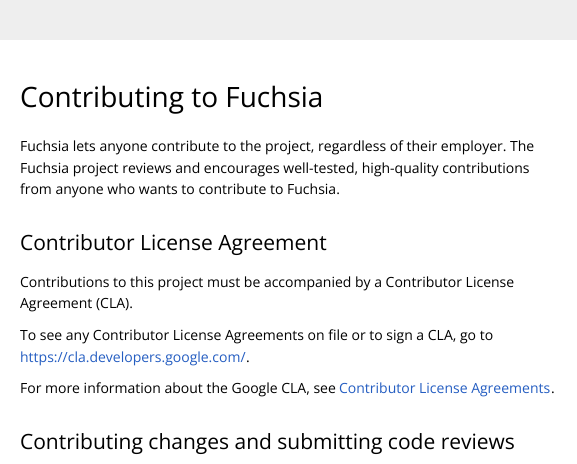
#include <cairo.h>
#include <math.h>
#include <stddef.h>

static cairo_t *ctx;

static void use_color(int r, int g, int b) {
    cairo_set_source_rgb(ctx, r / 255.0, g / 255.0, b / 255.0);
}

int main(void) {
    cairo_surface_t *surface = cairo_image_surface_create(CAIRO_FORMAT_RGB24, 577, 464);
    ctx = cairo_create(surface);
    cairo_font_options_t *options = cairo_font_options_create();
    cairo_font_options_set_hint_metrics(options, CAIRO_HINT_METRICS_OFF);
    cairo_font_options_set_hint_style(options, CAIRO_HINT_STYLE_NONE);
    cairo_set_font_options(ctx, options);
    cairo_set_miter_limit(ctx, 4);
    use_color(255, 255, 255);
    cairo_paint(ctx);
    use_color(238, 238, 238);
    cairo_rectangle(ctx, 0, 0, 577, 40);
    cairo_fill(ctx);
    cairo_select_font_face(ctx, "Open Sans", CAIRO_FONT_SLANT_NORMAL, CAIRO_FONT_WEIGHT_NORMAL);
    cairo_set_font_size(ctx, 28);
    use_color(0, 0, 0);
    cairo_move_to(ctx, 20, 107);
    cairo_show_text(ctx, "Contributing to Fuchsia");
    cairo_set_font_size(ctx, 14);
    cairo_move_to(ctx, 20, 151);
    cairo_show_text(ctx, "Fuchsia lets anyone contribute to the project, regardless of their employer. The");
    cairo_move_to(ctx, 20, 173);
    cairo_show_text(ctx, "Fuchsia project reviews and encourages well-tested, high-quality contributions");
    cairo_move_to(ctx, 20, 194);
    cairo_show_text(ctx, "from anyone who wants to contribute to Fuchsia.");
    cairo_set_font_size(ctx, 21);
    cairo_move_to(ctx, 20, 250);
    cairo_show_text(ctx, "Contributor License Agreement");
    cairo_set_font_size(ctx, 14);
    cairo_move_to(ctx, 20, 287);
    cairo_show_text(ctx, "Contributions to this project must be accompanied by a Contributor License");
    cairo_move_to(ctx, 20, 308);
    cairo_show_text(ctx, "Agreement (CLA).");
    cairo_move_to(ctx, 20, 340);
    cairo_show_text(ctx, "To see any Contributor License Agreements on file or to sign a CLA, go to");
    use_color(36, 93, 193);
    cairo_move_to(ctx, 20, 362);
    cairo_show_text(ctx, "https://cla.developers.google.com/");
    use_color(0, 0, 0);
    cairo_move_to(ctx, 246, 362);
    cairo_show_text(ctx, ".");
    cairo_move_to(ctx, 20, 393);
    cairo_show_text(ctx, "For more information about the Google CLA, see");
    use_color(36, 93, 193);
    cairo_move_to(ctx, 339, 393);
    cairo_show_text(ctx, "Contributor License Agreements");
    use_color(0, 0, 0);
    cairo_move_to(ctx, 551, 393);
    cairo_show_text(ctx, ".");
    cairo_set_font_size(ctx, 21);
    cairo_move_to(ctx, 20, 449);
    cairo_show_text(ctx, "Contributing changes and submitting code reviews");
    cairo_surface_write_to_png(surface, "result.png");
    cairo_font_options_destroy(options);
    cairo_destroy(ctx);
    cairo_surface_destroy(surface);
    return 0;
}
